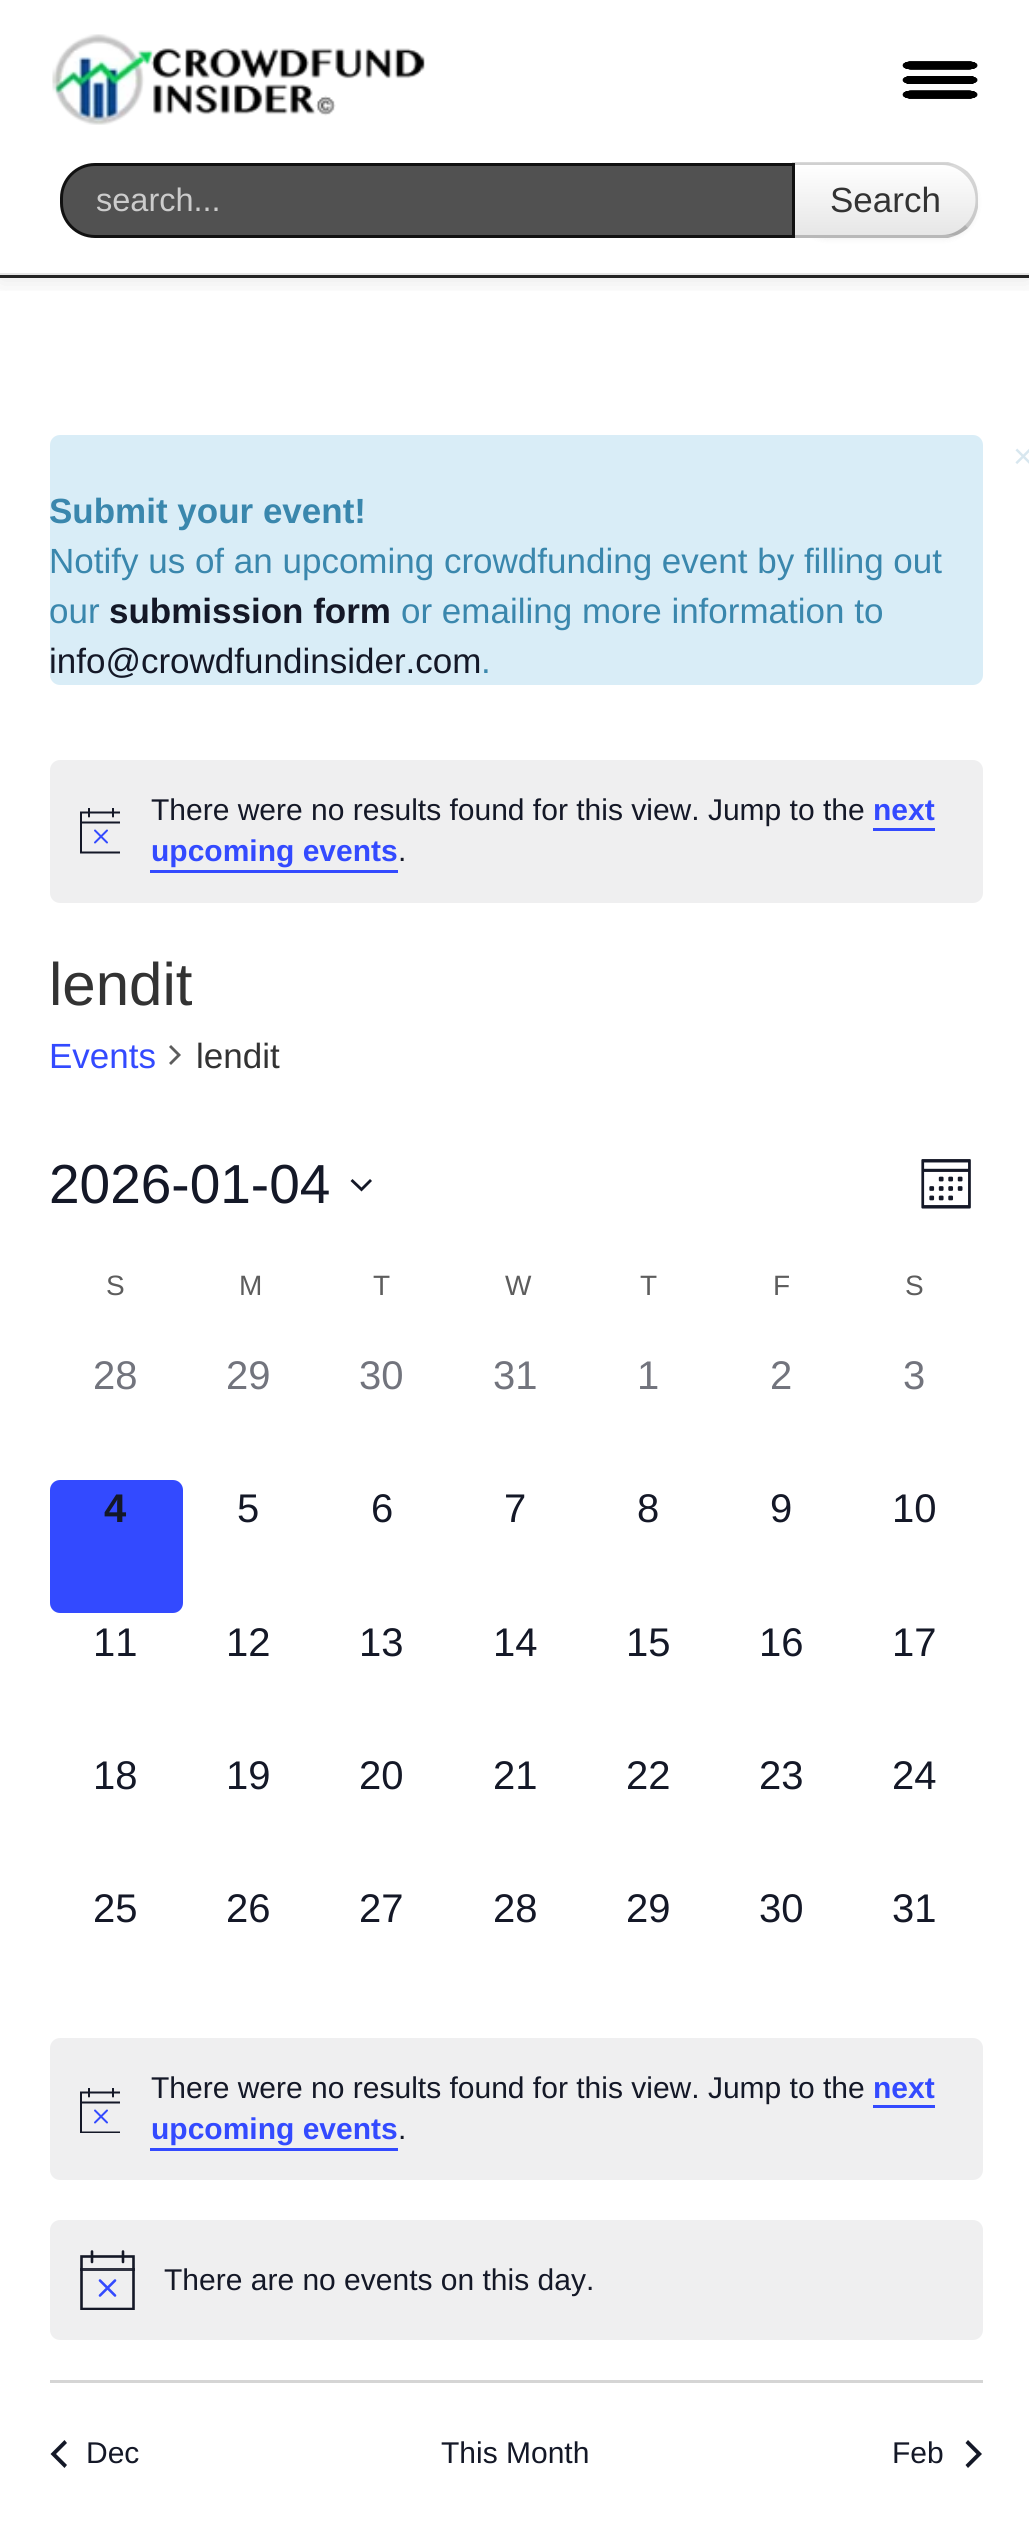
#include <cairo.h>
#include <math.h>
#include <stddef.h>

static cairo_t *ctx;

static void use_color(int r, int g, int b) {
    cairo_set_source_rgb(ctx, r / 255.0, g / 255.0, b / 255.0);
}

static void round_rect(double x, double y, double w, double h, double r) {
    cairo_new_sub_path(ctx);
    cairo_arc(ctx, x + w - r, y + h - r, r, 0, M_PI / 2);
    cairo_arc(ctx, x + r, y + h - r, r, M_PI / 2, M_PI);
    cairo_arc(ctx, x + r, y + r, r, M_PI, 1.5 * M_PI);
    cairo_arc(ctx, x + w - r, y + r, r, 1.5 * M_PI, 2 * M_PI);
    cairo_close_path(ctx);
}

static void shadow(double x, double y, double w, double h, double r, double blur, double alpha) {
    cairo_push_group_with_content(ctx, CAIRO_CONTENT_ALPHA);
    cairo_set_operator(ctx, CAIRO_OPERATOR_SOURCE);
    for (int i = 15; i >= -15 && fmin(w, h) + blur * i / 3 > 0; i -= 2) {
        double e = blur * i / 6;
        cairo_set_source_rgba(ctx, 0, 0, 0, alpha * erfc((i - 1) / 8.5) / 2);
        round_rect(x - e, y - e, w + 2 * e, h + 2 * e, fmax(0, fmin(r + e + blur * .6, fmin(w, h) / 2 + e)));
        cairo_fill(ctx);
    }
    cairo_pattern_t *soft = cairo_pop_group(ctx);
    cairo_mask(ctx, soft);
    cairo_pattern_destroy(soft);
}

static void picture(const char *path, double x, double y, double w, double h) {
    cairo_surface_t *image = cairo_image_surface_create_from_png(path);
    cairo_save(ctx);
    cairo_set_source_surface(ctx, image, x, y);
    cairo_rectangle(ctx, x, y, w, h);
    cairo_fill(ctx);
    cairo_restore(ctx);
    cairo_surface_destroy(image);
}

int main(void) {
    cairo_surface_t *surface = cairo_image_surface_create(CAIRO_FORMAT_RGB24, 1029, 2542);
    ctx = cairo_create(surface);
    cairo_font_options_t *options = cairo_font_options_create();
    cairo_font_options_set_hint_metrics(options, CAIRO_HINT_METRICS_OFF);
    cairo_font_options_set_hint_style(options, CAIRO_HINT_STYLE_NONE);
    cairo_set_font_options(ctx, options);
    cairo_set_miter_limit(ctx, 4);
    cairo_pattern_t *gradient;
    use_color(255, 255, 255);
    cairo_paint(ctx);
    cairo_save(ctx);
    cairo_rectangle(ctx, 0, 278, 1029, 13);
    cairo_clip(ctx);
    use_color(0, 0, 0);
    shadow(0, 3, 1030, 277, 0, 12.5, 0.1);
    cairo_restore(ctx);
    use_color(230, 230, 230);
    cairo_rectangle(ctx, 0, 273, 1029, 2);
    cairo_fill(ctx);
    use_color(37, 37, 37);
    cairo_rectangle(ctx, 0, 275, 1029, 3);
    cairo_fill(ctx);
    picture("img1.png", 52, 34, 373, 91);
    picture("img2.png", 902, 61, 76, 38);
    use_color(0, 0, 0);
    shadow(793, 165, 185, 75, 35, 2.5, 0.05);
    use_color(245, 245, 245);
    cairo_new_path(ctx);
    cairo_move_to(ctx, 793, 163);
    cairo_line_to(ctx, 943, 163);
    cairo_curve_to(ctx, 962.5, 163, 978, 178.5, 978, 198);
    cairo_line_to(ctx, 978, 203);
    cairo_curve_to(ctx, 978, 222.5, 962.5, 238, 943, 238);
    cairo_line_to(ctx, 793, 238);
    cairo_close_path(ctx);
    cairo_fill(ctx);
    cairo_save(ctx);
    cairo_new_path(ctx);
    cairo_move_to(ctx, 793, 163);
    cairo_line_to(ctx, 943, 163);
    cairo_curve_to(ctx, 962.5, 163, 978, 178.5, 978, 198);
    cairo_line_to(ctx, 978, 203);
    cairo_curve_to(ctx, 978, 222.5, 962.5, 238, 943, 238);
    cairo_line_to(ctx, 793, 238);
    cairo_close_path(ctx);
    cairo_clip(ctx);
    gradient = cairo_pattern_create_linear(885, 165, 885, 235);
    cairo_pattern_add_color_stop_rgba(gradient, 0, 1, 1, 1, 1);
    cairo_pattern_add_color_stop_rgba(gradient, 1, 0.902, 0.902, 0.902, 1);
    cairo_set_source(ctx, gradient);
    cairo_pattern_destroy(gradient);
    cairo_rectangle(ctx, 795, 165, 183, 70);
    cairo_fill(ctx);
    cairo_restore(ctx);
    cairo_set_source_rgba(ctx, 0, 0, 0, 0.15);
    cairo_new_path(ctx);
    cairo_move_to(ctx, 795, 165);
    cairo_line_to(ctx, 792, 162);
    cairo_line_to(ctx, 948, 162);
    cairo_curve_to(ctx, 956, 164, 962, 167, 968, 172);
    cairo_line_to(ctx, 965, 175);
    cairo_curve_to(ctx, 959, 169, 951, 165, 942, 165);
    cairo_close_path(ctx);
    cairo_fill(ctx);
    cairo_new_path(ctx);
    cairo_move_to(ctx, 978, 208);
    cairo_curve_to(ctx, 976, 216, 973, 222, 968, 228);
    cairo_line_to(ctx, 965, 225);
    cairo_curve_to(ctx, 979, 212, 979, 188, 965, 175);
    cairo_line_to(ctx, 968, 172);
    cairo_curve_to(ctx, 979, 184, 978, 194, 978, 208);
    cairo_close_path(ctx);
    cairo_fill(ctx);
    cairo_set_source_rgba(ctx, 0, 0, 0, 0.25);
    cairo_new_path(ctx);
    cairo_move_to(ctx, 968, 228);
    cairo_curve_to(ctx, 962, 233, 956, 236, 948, 238);
    cairo_line_to(ctx, 792, 238);
    cairo_line_to(ctx, 795, 235);
    cairo_line_to(ctx, 942, 235);
    cairo_curve_to(ctx, 951, 235, 959, 231, 965, 225);
    cairo_close_path(ctx);
    cairo_fill(ctx);
    cairo_set_source_rgba(ctx, 0, 0, 0, 0.15);
    cairo_new_path(ctx);
    cairo_move_to(ctx, 792, 238);
    cairo_line_to(ctx, 795, 235);
    cairo_line_to(ctx, 795, 165);
    cairo_line_to(ctx, 792, 162);
    cairo_close_path(ctx);
    cairo_fill(ctx);
    use_color(81, 81, 81);
    cairo_new_path(ctx);
    cairo_move_to(ctx, 95, 164.5);
    cairo_line_to(ctx, 793.5, 164.5);
    cairo_line_to(ctx, 793.5, 236.5);
    cairo_line_to(ctx, 95, 236.5);
    cairo_curve_to(ctx, 76.5, 236.5, 61.5, 221.5, 61.5, 203);
    cairo_line_to(ctx, 61.5, 198);
    cairo_curve_to(ctx, 61.5, 179.5, 76.5, 164.5, 95, 164.5);
    cairo_close_path(ctx);
    cairo_fill_preserve(ctx);
    use_color(17, 17, 17);
    cairo_set_line_width(ctx, 3);
    cairo_stroke(ctx);
    cairo_select_font_face(ctx, "Liberation Sans", CAIRO_FONT_SLANT_NORMAL, CAIRO_FONT_WEIGHT_NORMAL);
    cairo_set_font_size(ctx, 32.5);
    use_color(204, 204, 204);
    cairo_move_to(ctx, 96, 211);
    cairo_show_text(ctx, "search...");
    cairo_set_font_size(ctx, 35);
    use_color(51, 51, 51);
    cairo_move_to(ctx, 830, 212);
    cairo_show_text(ctx, "Search");
    use_color(217, 237, 247);
    round_rect(50, 435, 933, 250, 10);
    cairo_fill(ctx);
    use_color(216, 231, 239);
    cairo_move_to(ctx, 1013, 468);
    cairo_show_text(ctx, "×");
    cairo_select_font_face(ctx, "Liberation Sans", CAIRO_FONT_SLANT_NORMAL, CAIRO_FONT_WEIGHT_BOLD);
    use_color(58, 135, 173);
    cairo_move_to(ctx, 49, 523);
    cairo_show_text(ctx, "Submit your event!");
    cairo_select_font_face(ctx, "Liberation Sans", CAIRO_FONT_SLANT_NORMAL, CAIRO_FONT_WEIGHT_NORMAL);
    cairo_move_to(ctx, 49, 573);
    cairo_show_text(ctx, "Notify us of an upcoming crowdfunding event by filling out");
    cairo_move_to(ctx, 49, 623);
    cairo_show_text(ctx, "our");
    cairo_select_font_face(ctx, "Liberation Sans", CAIRO_FONT_SLANT_NORMAL, CAIRO_FONT_WEIGHT_BOLD);
    use_color(20, 24, 39);
    cairo_move_to(ctx, 109, 623);
    cairo_show_text(ctx, "submission form");
    cairo_select_font_face(ctx, "Liberation Sans", CAIRO_FONT_SLANT_NORMAL, CAIRO_FONT_WEIGHT_NORMAL);
    use_color(58, 135, 173);
    cairo_move_to(ctx, 401, 623);
    cairo_show_text(ctx, "or emailing more information to");
    use_color(20, 24, 39);
    cairo_move_to(ctx, 49, 673);
    cairo_show_text(ctx, "info@crowdfundinsider.com");
    use_color(58, 135, 173);
    cairo_move_to(ctx, 481, 673);
    cairo_show_text(ctx, ".");
    use_color(239, 239, 240);
    round_rect(50, 760, 933, 143, 10);
    cairo_fill(ctx);
    cairo_save(ctx);
    cairo_rectangle(ctx, 80, 808, 40, 47);
    cairo_clip(ctx);
    cairo_new_path(ctx);
    cairo_move_to(ctx, 81, 812.5);
    cairo_line_to(ctx, 121, 812.5);
    cairo_line_to(ctx, 121, 852.5);
    cairo_line_to(ctx, 81, 852.5);
    cairo_close_path(ctx);
    use_color(20, 24, 39);
    cairo_set_line_width(ctx, 2);
    cairo_stroke(ctx);
    cairo_restore(ctx);
    cairo_new_path(ctx);
    cairo_move_to(ctx, 95, 830.5);
    cairo_line_to(ctx, 107, 842.5);
    cairo_move_to(ctx, 107, 830.5);
    cairo_line_to(ctx, 95, 842.5);
    use_color(51, 74, 255);
    cairo_set_line_width(ctx, 2);
    cairo_set_line_cap(ctx, CAIRO_LINE_CAP_ROUND);
    cairo_stroke(ctx);
    cairo_save(ctx);
    cairo_rectangle(ctx, 80, 808, 40, 47);
    cairo_clip(ctx);
    cairo_new_path(ctx);
    cairo_move_to(ctx, 89, 808.5);
    cairo_line_to(ctx, 89, 816.5);
    cairo_move_to(ctx, 113, 808.5);
    cairo_line_to(ctx, 113, 816.5);
    use_color(20, 24, 39);
    cairo_stroke(ctx);
    cairo_new_path(ctx);
    cairo_move_to(ctx, 81, 822.5);
    cairo_line_to(ctx, 121, 822.5);
    cairo_set_line_cap(ctx, CAIRO_LINE_CAP_SQUARE);
    cairo_stroke(ctx);
    cairo_restore(ctx);
    cairo_set_font_size(ctx, 30);
    use_color(20, 24, 39);
    cairo_move_to(ctx, 151, 820);
    cairo_show_text(ctx, "There were no results found for this view. Jump to the");
    cairo_select_font_face(ctx, "Liberation Sans", CAIRO_FONT_SLANT_NORMAL, CAIRO_FONT_WEIGHT_BOLD);
    use_color(51, 74, 255);
    cairo_move_to(ctx, 873, 820);
    cairo_show_text(ctx, "next");
    cairo_rectangle(ctx, 873, 828, 62, 3);
    cairo_fill(ctx);
    cairo_move_to(ctx, 151, 861);
    cairo_show_text(ctx, "upcoming events");
    cairo_rectangle(ctx, 150, 870, 248, 3);
    cairo_fill(ctx);
    cairo_select_font_face(ctx, "Liberation Sans", CAIRO_FONT_SLANT_NORMAL, CAIRO_FONT_WEIGHT_NORMAL);
    use_color(20, 24, 39);
    cairo_move_to(ctx, 398, 861);
    cairo_show_text(ctx, ".");
    cairo_set_font_size(ctx, 60);
    use_color(51, 51, 51);
    cairo_move_to(ctx, 49, 1005);
    cairo_show_text(ctx, "lendit");
    cairo_set_font_size(ctx, 35);
    use_color(51, 74, 255);
    cairo_move_to(ctx, 49, 1068);
    cairo_show_text(ctx, "Events");
    use_color(93, 93, 93);
    cairo_new_path(ctx);
    cairo_move_to(ctx, 169, 1047);
    cairo_line_to(ctx, 171, 1045);
    cairo_line_to(ctx, 181, 1055);
    cairo_line_to(ctx, 171, 1065);
    cairo_line_to(ctx, 169, 1063);
    cairo_line_to(ctx, 177, 1055);
    cairo_close_path(ctx);
    cairo_fill(ctx);
    use_color(51, 51, 51);
    cairo_move_to(ctx, 196, 1068);
    cairo_show_text(ctx, "lendit");
    cairo_set_font_size(ctx, 55);
    use_color(20, 24, 39);
    cairo_move_to(ctx, 49, 1203);
    cairo_show_text(ctx, "2026-01-04");
    cairo_set_fill_rule(ctx, CAIRO_FILL_RULE_EVEN_ODD);
    cairo_new_path(ctx);
    cairo_move_to(ctx, 352.5, 1179);
    cairo_line_to(ctx, 361.5, 1187.5);
    cairo_line_to(ctx, 370, 1179);
    cairo_line_to(ctx, 372, 1181);
    cairo_line_to(ctx, 361.5, 1191.5);
    cairo_line_to(ctx, 350.5, 1181);
    cairo_close_path(ctx);
    cairo_fill(ctx);
    picture("img3.png", 921, 1159, 50, 50);
    cairo_set_font_size(ctx, 28);
    use_color(93, 93, 93);
    cairo_move_to(ctx, 106, 1295);
    cairo_show_text(ctx, "S");
    cairo_move_to(ctx, 239, 1295);
    cairo_show_text(ctx, "M");
    cairo_move_to(ctx, 373, 1295);
    cairo_show_text(ctx, "T");
    cairo_move_to(ctx, 505, 1295);
    cairo_show_text(ctx, "W");
    cairo_move_to(ctx, 640, 1295);
    cairo_show_text(ctx, "T");
    cairo_move_to(ctx, 773, 1295);
    cairo_show_text(ctx, "F");
    cairo_move_to(ctx, 905, 1295);
    cairo_show_text(ctx, "S");
    cairo_set_font_size(ctx, 40);
    use_color(114, 116, 125);
    cairo_move_to(ctx, 93, 1389);
    cairo_show_text(ctx, "28");
    cairo_move_to(ctx, 226, 1389);
    cairo_show_text(ctx, "29");
    cairo_move_to(ctx, 359, 1389);
    cairo_show_text(ctx, "30");
    cairo_move_to(ctx, 493, 1389);
    cairo_show_text(ctx, "31");
    cairo_move_to(ctx, 637, 1389);
    cairo_show_text(ctx, "1");
    cairo_move_to(ctx, 770, 1389);
    cairo_show_text(ctx, "2");
    cairo_move_to(ctx, 903, 1389);
    cairo_show_text(ctx, "3");
    use_color(51, 74, 255);
    round_rect(50, 1480, 133, 133, 10);
    cairo_fill(ctx);
    cairo_select_font_face(ctx, "Liberation Sans", CAIRO_FONT_SLANT_NORMAL, CAIRO_FONT_WEIGHT_BOLD);
    use_color(20, 24, 39);
    cairo_move_to(ctx, 104, 1522);
    cairo_show_text(ctx, "4");
    cairo_select_font_face(ctx, "Liberation Sans", CAIRO_FONT_SLANT_NORMAL, CAIRO_FONT_WEIGHT_NORMAL);
    cairo_move_to(ctx, 237, 1522);
    cairo_show_text(ctx, "5");
    cairo_move_to(ctx, 371, 1522);
    cairo_show_text(ctx, "6");
    cairo_move_to(ctx, 504, 1522);
    cairo_show_text(ctx, "7");
    cairo_move_to(ctx, 637, 1522);
    cairo_show_text(ctx, "8");
    cairo_move_to(ctx, 770, 1522);
    cairo_show_text(ctx, "9");
    cairo_move_to(ctx, 892, 1522);
    cairo_show_text(ctx, "10");
    cairo_move_to(ctx, 93, 1656);
    cairo_show_text(ctx, "11");
    cairo_move_to(ctx, 226, 1656);
    cairo_show_text(ctx, "12");
    cairo_move_to(ctx, 359, 1656);
    cairo_show_text(ctx, "13");
    cairo_move_to(ctx, 493, 1656);
    cairo_show_text(ctx, "14");
    cairo_move_to(ctx, 626, 1656);
    cairo_show_text(ctx, "15");
    cairo_move_to(ctx, 759, 1656);
    cairo_show_text(ctx, "16");
    cairo_move_to(ctx, 892, 1656);
    cairo_show_text(ctx, "17");
    cairo_move_to(ctx, 93, 1789);
    cairo_show_text(ctx, "18");
    cairo_move_to(ctx, 226, 1789);
    cairo_show_text(ctx, "19");
    cairo_move_to(ctx, 359, 1789);
    cairo_show_text(ctx, "20");
    cairo_move_to(ctx, 493, 1789);
    cairo_show_text(ctx, "21");
    cairo_move_to(ctx, 626, 1789);
    cairo_show_text(ctx, "22");
    cairo_move_to(ctx, 759, 1789);
    cairo_show_text(ctx, "23");
    cairo_move_to(ctx, 892, 1789);
    cairo_show_text(ctx, "24");
    cairo_move_to(ctx, 93, 1922);
    cairo_show_text(ctx, "25");
    cairo_move_to(ctx, 226, 1922);
    cairo_show_text(ctx, "26");
    cairo_move_to(ctx, 359, 1922);
    cairo_show_text(ctx, "27");
    cairo_move_to(ctx, 493, 1922);
    cairo_show_text(ctx, "28");
    cairo_move_to(ctx, 626, 1922);
    cairo_show_text(ctx, "29");
    cairo_move_to(ctx, 759, 1922);
    cairo_show_text(ctx, "30");
    cairo_move_to(ctx, 892, 1922);
    cairo_show_text(ctx, "31");
    use_color(239, 239, 240);
    round_rect(50, 2038, 933, 142, 10);
    cairo_fill(ctx);
    cairo_save(ctx);
    cairo_set_fill_rule(ctx, CAIRO_FILL_RULE_WINDING);
    cairo_rectangle(ctx, 80, 2088, 40, 45);
    cairo_clip(ctx);
    cairo_new_path(ctx);
    cairo_move_to(ctx, 81, 2092.5);
    cairo_line_to(ctx, 121, 2092.5);
    cairo_line_to(ctx, 121, 2132.5);
    cairo_line_to(ctx, 81, 2132.5);
    cairo_close_path(ctx);
    use_color(20, 24, 39);
    cairo_set_line_cap(ctx, CAIRO_LINE_CAP_BUTT);
    cairo_stroke(ctx);
    cairo_restore(ctx);
    cairo_new_path(ctx);
    cairo_move_to(ctx, 95, 2110.5);
    cairo_line_to(ctx, 107, 2122.5);
    cairo_move_to(ctx, 107, 2110.5);
    cairo_line_to(ctx, 95, 2122.5);
    use_color(51, 74, 255);
    cairo_stroke(ctx);
    cairo_save(ctx);
    cairo_set_fill_rule(ctx, CAIRO_FILL_RULE_WINDING);
    cairo_rectangle(ctx, 80, 2088, 40, 45);
    cairo_clip(ctx);
    cairo_new_path(ctx);
    cairo_move_to(ctx, 89, 2088.5);
    cairo_line_to(ctx, 89, 2096.5);
    cairo_move_to(ctx, 113, 2088.5);
    cairo_line_to(ctx, 113, 2096.5);
    use_color(20, 24, 39);
    cairo_stroke(ctx);
    cairo_new_path(ctx);
    cairo_move_to(ctx, 81, 2102.5);
    cairo_line_to(ctx, 121, 2102.5);
    cairo_set_line_cap(ctx, CAIRO_LINE_CAP_SQUARE);
    cairo_stroke(ctx);
    cairo_restore(ctx);
    cairo_set_font_size(ctx, 30);
    use_color(20, 24, 39);
    cairo_move_to(ctx, 151, 2098);
    cairo_show_text(ctx, "There were no results found for this view. Jump to the");
    cairo_select_font_face(ctx, "Liberation Sans", CAIRO_FONT_SLANT_NORMAL, CAIRO_FONT_WEIGHT_BOLD);
    use_color(51, 74, 255);
    cairo_move_to(ctx, 873, 2098);
    cairo_show_text(ctx, "next");
    cairo_rectangle(ctx, 873, 2105, 62, 3);
    cairo_fill(ctx);
    cairo_move_to(ctx, 151, 2139);
    cairo_show_text(ctx, "upcoming events");
    cairo_rectangle(ctx, 150, 2148, 248, 3);
    cairo_fill(ctx);
    cairo_select_font_face(ctx, "Liberation Sans", CAIRO_FONT_SLANT_NORMAL, CAIRO_FONT_WEIGHT_NORMAL);
    use_color(20, 24, 39);
    cairo_move_to(ctx, 398, 2139);
    cairo_show_text(ctx, ".");
    use_color(239, 239, 240);
    round_rect(50, 2220, 933, 120, 10);
    cairo_fill(ctx);
    cairo_save(ctx);
    cairo_set_fill_rule(ctx, CAIRO_FILL_RULE_WINDING);
    cairo_rectangle(ctx, 80, 2250, 55, 60);
    cairo_clip(ctx);
    cairo_new_path(ctx);
    cairo_move_to(ctx, 81.5, 2256.5);
    cairo_line_to(ctx, 133.5, 2256.5);
    cairo_line_to(ctx, 133.5, 2309);
    cairo_line_to(ctx, 81.5, 2309);
    cairo_close_path(ctx);
    use_color(20, 24, 39);
    cairo_set_line_width(ctx, 2.6);
    cairo_set_line_cap(ctx, CAIRO_LINE_CAP_BUTT);
    cairo_stroke(ctx);
    cairo_restore(ctx);
    cairo_new_path(ctx);
    cairo_move_to(ctx, 100, 2280.5);
    cairo_line_to(ctx, 115, 2295.5);
    cairo_move_to(ctx, 115, 2280.5);
    cairo_line_to(ctx, 100, 2295.5);
    use_color(51, 74, 255);
    cairo_set_line_width(ctx, 2.6);
    cairo_stroke(ctx);
    cairo_new_path(ctx);
    cairo_move_to(ctx, 92, 2251.5);
    cairo_line_to(ctx, 92, 2262);
    cairo_move_to(ctx, 123, 2251.5);
    cairo_line_to(ctx, 123, 2262);
    use_color(20, 24, 39);
    cairo_stroke(ctx);
    cairo_set_source_rgba(ctx, 0.078, 0.094, 0.153, 0.87);
    cairo_rectangle(ctx, 80, 2268, 55, 3);
    cairo_fill(ctx);
    use_color(20, 24, 39);
    cairo_move_to(ctx, 164, 2290);
    cairo_show_text(ctx, "There are no events on this day.");
    use_color(213, 213, 213);
    cairo_rectangle(ctx, 50, 2380, 933, 3);
    cairo_fill(ctx);
    use_color(20, 24, 39);
    cairo_set_fill_rule(ctx, CAIRO_FILL_RULE_WINDING);
    cairo_new_path(ctx);
    cairo_move_to(ctx, 67, 2465);
    cairo_line_to(ctx, 64.5, 2468);
    cairo_line_to(ctx, 50.5, 2454);
    cairo_line_to(ctx, 64.5, 2440);
    cairo_line_to(ctx, 67, 2443);
    cairo_line_to(ctx, 56, 2454);
    cairo_close_path(ctx);
    cairo_fill(ctx);
    cairo_move_to(ctx, 86, 2463);
    cairo_show_text(ctx, "Dec");
    cairo_move_to(ctx, 441, 2463);
    cairo_show_text(ctx, "This Month");
    cairo_move_to(ctx, 892, 2463);
    cairo_show_text(ctx, "Feb");
    cairo_new_path(ctx);
    cairo_move_to(ctx, 965.5, 2443);
    cairo_line_to(ctx, 968, 2440);
    cairo_line_to(ctx, 982, 2454);
    cairo_line_to(ctx, 968, 2468);
    cairo_line_to(ctx, 965.5, 2465);
    cairo_line_to(ctx, 976.5, 2454);
    cairo_close_path(ctx);
    cairo_fill(ctx);
    cairo_surface_write_to_png(surface, "result.png");
    cairo_font_options_destroy(options);
    cairo_destroy(ctx);
    cairo_surface_destroy(surface);
    return 0;
}
